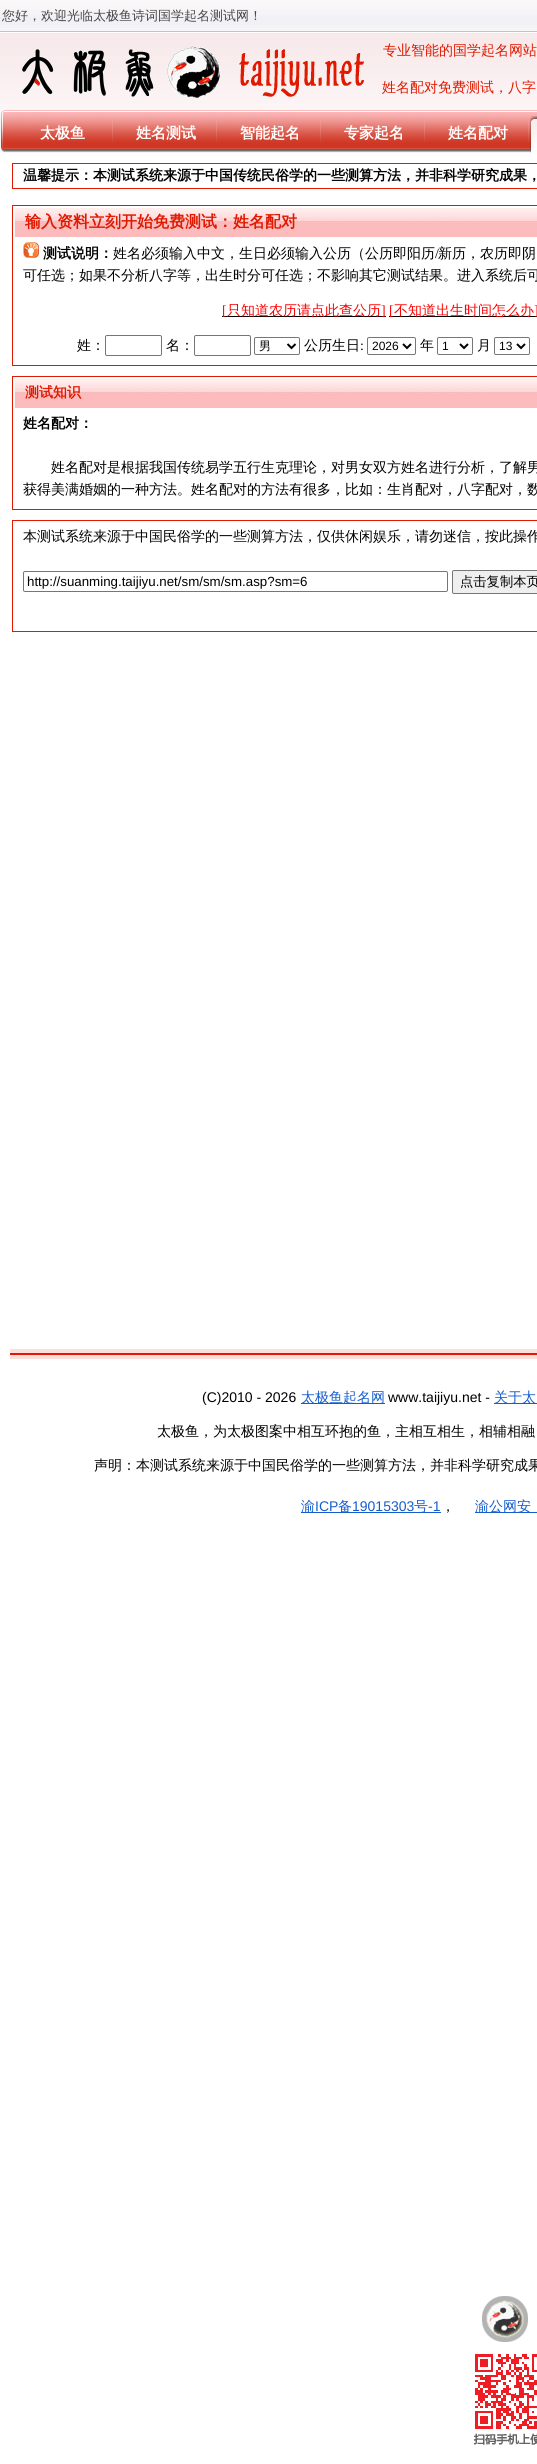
#include <cairo.h>
#include <math.h>
#include <stddef.h>

static cairo_t *ctx;

static void use_color(int r, int g, int b) {
    cairo_set_source_rgb(ctx, r / 255.0, g / 255.0, b / 255.0);
}

static void round_rect(double x, double y, double w, double h, double r) {
    cairo_new_sub_path(ctx);
    cairo_arc(ctx, x + w - r, y + h - r, r, 0, M_PI / 2);
    cairo_arc(ctx, x + r, y + h - r, r, M_PI / 2, M_PI);
    cairo_arc(ctx, x + r, y + r, r, M_PI, 1.5 * M_PI);
    cairo_arc(ctx, x + w - r, y + r, r, 1.5 * M_PI, 2 * M_PI);
    cairo_close_path(ctx);
}

static void picture(const char *path, double x, double y, double w, double h) {
    cairo_surface_t *image = cairo_image_surface_create_from_png(path);
    cairo_save(ctx);
    cairo_set_source_surface(ctx, image, x, y);
    cairo_rectangle(ctx, x, y, w, h);
    cairo_fill(ctx);
    cairo_restore(ctx);
    cairo_surface_destroy(image);
}

int main(void) {
    cairo_surface_t *surface = cairo_image_surface_create(CAIRO_FORMAT_RGB24, 537, 2464);
    ctx = cairo_create(surface);
    cairo_font_options_t *options = cairo_font_options_create();
    cairo_font_options_set_hint_metrics(options, CAIRO_HINT_METRICS_OFF);
    cairo_font_options_set_hint_style(options, CAIRO_HINT_STYLE_NONE);
    cairo_set_font_options(ctx, options);
    cairo_set_miter_limit(ctx, 4);
    use_color(255, 255, 255);
    cairo_paint(ctx);
    picture("img1.png", 0, 0, 537, 32);
    cairo_select_font_face(ctx, "WenQuanYi Zen Hei Medium", CAIRO_FONT_SLANT_NORMAL, CAIRO_FONT_WEIGHT_NORMAL);
    cairo_set_font_size(ctx, 13);
    use_color(71, 70, 70);
    cairo_move_to(ctx, 2, 20);
    cairo_show_text(ctx, "您好，欢迎光临太极鱼诗词国学起名测试网！");
    picture("img2.png", 0, 33, 537, 81);
    picture("img3.png", 22, 46, 342, 52);
    cairo_set_font_size(ctx, 14);
    use_color(224, 25, 0);
    cairo_move_to(ctx, 383, 55);
    cairo_show_text(ctx, "专业智能的国学起名网站");
    cairo_move_to(ctx, 382, 92);
    cairo_show_text(ctx, "姓名配对免费测试，八字");
    picture("img4.png", 0, 110, 537, 43);
    picture("img5.png", 112, 120, 1, 22);
    cairo_select_font_face(ctx, "WenQuanYi Zen Hei", CAIRO_FONT_SLANT_NORMAL, CAIRO_FONT_WEIGHT_BOLD);
    cairo_set_font_size(ctx, 15);
    use_color(255, 255, 255);
    cairo_move_to(ctx, 40, 138);
    cairo_show_text(ctx, "太极鱼");
    picture("img6.png", 216, 120, 1, 22);
    cairo_move_to(ctx, 136, 138);
    cairo_show_text(ctx, "姓名测试");
    picture("img7.png", 320, 120, 1, 22);
    cairo_move_to(ctx, 240, 138);
    cairo_show_text(ctx, "智能起名");
    picture("img8.png", 424, 120, 1, 22);
    cairo_move_to(ctx, 344, 138);
    cairo_show_text(ctx, "专家起名");
    picture("img9.png", 528, 120, 1, 22);
    cairo_move_to(ctx, 448, 138);
    cairo_show_text(ctx, "姓名配对");
    picture("img10.png", 530, 116, 7, 38);
    cairo_rectangle(ctx, 12.5, 163.5, 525, 25);
    use_color(224, 25, 0);
    cairo_set_line_width(ctx, 1);
    cairo_stroke(ctx);
    cairo_set_font_size(ctx, 14);
    use_color(0, 0, 0);
    cairo_move_to(ctx, 23, 180);
    cairo_show_text(ctx, "温馨提示：本测试系统来源于中国传统民俗学的一些测算方法，并非科学研究成果，");
    cairo_rectangle(ctx, 12.5, 205.5, 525, 160);
    use_color(224, 25, 0);
    cairo_stroke(ctx);
    picture("img11.png", 15, 208, 522, 29);
    cairo_set_font_size(ctx, 16);
    cairo_move_to(ctx, 25, 227);
    cairo_show_text(ctx, "输入资料立刻开始免费测试：姓名配对");
    picture("img12.png", 23, 242, 16, 16);
    cairo_set_font_size(ctx, 14);
    use_color(0, 0, 0);
    cairo_move_to(ctx, 43, 258);
    cairo_show_text(ctx, "测试说明：");
    cairo_select_font_face(ctx, "WenQuanYi Zen Hei Medium", CAIRO_FONT_SLANT_NORMAL, CAIRO_FONT_WEIGHT_NORMAL);
    cairo_move_to(ctx, 113, 258);
    cairo_show_text(ctx, "姓名必须输入中文，生日必须输入公历（公历即阳历");
    cairo_select_font_face(ctx, "Liberation Serif", CAIRO_FONT_SLANT_NORMAL, CAIRO_FONT_WEIGHT_NORMAL);
    cairo_move_to(ctx, 435, 258);
    cairo_show_text(ctx, "/");
    cairo_select_font_face(ctx, "WenQuanYi Zen Hei Medium", CAIRO_FONT_SLANT_NORMAL, CAIRO_FONT_WEIGHT_NORMAL);
    cairo_move_to(ctx, 438, 258);
    cairo_show_text(ctx, "新历，农历即阴");
    cairo_move_to(ctx, 23, 280);
    cairo_show_text(ctx, "可任选；如果不分析八字等，出生时分可任选；不影响其它测试结果。进入系统后可");
    cairo_rectangle(ctx, 222, 316, 164, 1);
    cairo_fill(ctx);
    cairo_select_font_face(ctx, "Liberation Serif", CAIRO_FONT_SLANT_NORMAL, CAIRO_FONT_WEIGHT_NORMAL);
    use_color(255, 0, 0);
    cairo_move_to(ctx, 222, 315);
    cairo_show_text(ctx, "[");
    cairo_select_font_face(ctx, "WenQuanYi Zen Hei Medium", CAIRO_FONT_SLANT_NORMAL, CAIRO_FONT_WEIGHT_NORMAL);
    cairo_move_to(ctx, 227, 315);
    cairo_show_text(ctx, "只知道农历请点此查公历");
    cairo_select_font_face(ctx, "Liberation Serif", CAIRO_FONT_SLANT_NORMAL, CAIRO_FONT_WEIGHT_NORMAL);
    cairo_move_to(ctx, 381, 315);
    cairo_show_text(ctx, "]");
    use_color(0, 0, 0);
    cairo_rectangle(ctx, 389, 316, 148, 1);
    cairo_fill(ctx);
    use_color(255, 0, 0);
    cairo_move_to(ctx, 389, 315);
    cairo_show_text(ctx, "[");
    cairo_select_font_face(ctx, "WenQuanYi Zen Hei Medium", CAIRO_FONT_SLANT_NORMAL, CAIRO_FONT_WEIGHT_NORMAL);
    cairo_move_to(ctx, 394, 315);
    cairo_show_text(ctx, "不知道出生时间怎么办");
    cairo_select_font_face(ctx, "Liberation Serif", CAIRO_FONT_SLANT_NORMAL, CAIRO_FONT_WEIGHT_NORMAL);
    cairo_move_to(ctx, 534, 315);
    cairo_show_text(ctx, "]");
    cairo_select_font_face(ctx, "WenQuanYi Zen Hei Medium", CAIRO_FONT_SLANT_NORMAL, CAIRO_FONT_WEIGHT_NORMAL);
    use_color(0, 0, 0);
    cairo_move_to(ctx, 77, 350);
    cairo_show_text(ctx, "姓：");
    round_rect(105.5, 335.5, 56, 20, 1.5);
    use_color(118, 118, 118);
    cairo_stroke(ctx);
    use_color(0, 0, 0);
    cairo_move_to(ctx, 166, 350);
    cairo_show_text(ctx, "名：");
    round_rect(194.5, 335.5, 56, 20, 1.5);
    use_color(118, 118, 118);
    cairo_stroke(ctx);
    round_rect(254.5, 337.5, 45, 17, 1.5);
    cairo_stroke(ctx);
    cairo_new_path(ctx);
    cairo_move_to(ctx, 287.5, 344);
    cairo_line_to(ctx, 291.5, 348);
    cairo_line_to(ctx, 295.5, 344);
    use_color(0, 0, 0);
    cairo_set_line_width(ctx, 2);
    cairo_stroke(ctx);
    cairo_set_font_size(ctx, 12);
    cairo_move_to(ctx, 259, 350);
    cairo_show_text(ctx, "男");
    cairo_set_font_size(ctx, 14);
    cairo_move_to(ctx, 304, 350);
    cairo_show_text(ctx, "公历生日");
    cairo_select_font_face(ctx, "Liberation Serif", CAIRO_FONT_SLANT_NORMAL, CAIRO_FONT_WEIGHT_NORMAL);
    cairo_move_to(ctx, 360, 350);
    cairo_show_text(ctx, ":");
    round_rect(367.5, 337.5, 48, 17, 1.5);
    use_color(118, 118, 118);
    cairo_set_line_width(ctx, 1);
    cairo_stroke(ctx);
    cairo_new_path(ctx);
    cairo_move_to(ctx, 403, 344);
    cairo_line_to(ctx, 407, 348);
    cairo_line_to(ctx, 411, 344);
    use_color(0, 0, 0);
    cairo_set_line_width(ctx, 2);
    cairo_stroke(ctx);
    cairo_select_font_face(ctx, "Liberation Sans", CAIRO_FONT_SLANT_NORMAL, CAIRO_FONT_WEIGHT_NORMAL);
    cairo_set_font_size(ctx, 12);
    cairo_move_to(ctx, 372, 350);
    cairo_show_text(ctx, "2026");
    cairo_select_font_face(ctx, "WenQuanYi Zen Hei Medium", CAIRO_FONT_SLANT_NORMAL, CAIRO_FONT_WEIGHT_NORMAL);
    cairo_set_font_size(ctx, 14);
    cairo_move_to(ctx, 420, 350);
    cairo_show_text(ctx, "年");
    round_rect(437.5, 337.5, 35, 17, 1.5);
    use_color(118, 118, 118);
    cairo_set_line_width(ctx, 1);
    cairo_stroke(ctx);
    cairo_new_path(ctx);
    cairo_move_to(ctx, 460, 344);
    cairo_line_to(ctx, 464, 348);
    cairo_line_to(ctx, 468, 344);
    use_color(0, 0, 0);
    cairo_set_line_width(ctx, 2);
    cairo_stroke(ctx);
    cairo_select_font_face(ctx, "Liberation Sans", CAIRO_FONT_SLANT_NORMAL, CAIRO_FONT_WEIGHT_NORMAL);
    cairo_set_font_size(ctx, 12);
    cairo_move_to(ctx, 442, 350);
    cairo_show_text(ctx, "1");
    cairo_select_font_face(ctx, "WenQuanYi Zen Hei Medium", CAIRO_FONT_SLANT_NORMAL, CAIRO_FONT_WEIGHT_NORMAL);
    cairo_set_font_size(ctx, 14);
    cairo_move_to(ctx, 477, 350);
    cairo_show_text(ctx, "月");
    round_rect(494.5, 337.5, 35, 17, 1.5);
    use_color(118, 118, 118);
    cairo_set_line_width(ctx, 1);
    cairo_stroke(ctx);
    cairo_new_path(ctx);
    cairo_move_to(ctx, 517, 344);
    cairo_line_to(ctx, 521, 348);
    cairo_line_to(ctx, 525, 344);
    use_color(0, 0, 0);
    cairo_set_line_width(ctx, 2);
    cairo_stroke(ctx);
    cairo_select_font_face(ctx, "Liberation Sans", CAIRO_FONT_SLANT_NORMAL, CAIRO_FONT_WEIGHT_NORMAL);
    cairo_set_font_size(ctx, 12);
    cairo_move_to(ctx, 499, 350);
    cairo_show_text(ctx, "13");
    cairo_rectangle(ctx, 12.5, 376.5, 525, 133);
    use_color(224, 25, 0);
    cairo_set_line_width(ctx, 1);
    cairo_stroke(ctx);
    picture("img11.png", 15, 379, 522, 29);
    cairo_select_font_face(ctx, "WenQuanYi Zen Hei", CAIRO_FONT_SLANT_NORMAL, CAIRO_FONT_WEIGHT_BOLD);
    cairo_set_font_size(ctx, 14);
    cairo_move_to(ctx, 25, 397);
    cairo_show_text(ctx, "测试知识");
    use_color(0, 0, 0);
    cairo_move_to(ctx, 23, 428);
    cairo_show_text(ctx, "姓名配对：");
    cairo_select_font_face(ctx, "WenQuanYi Zen Hei Medium", CAIRO_FONT_SLANT_NORMAL, CAIRO_FONT_WEIGHT_NORMAL);
    cairo_move_to(ctx, 51, 472);
    cairo_show_text(ctx, "姓名配对是根据我国传统易学五行生克理论，对男女双方姓名进行分析，了解男");
    cairo_move_to(ctx, 23, 494);
    cairo_show_text(ctx, "获得美满婚姻的一种方法。姓名配对的方法有很多，比如：生肖配对，八字配对，数");
    cairo_rectangle(ctx, 12.5, 520.5, 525, 111);
    use_color(224, 25, 0);
    cairo_stroke(ctx);
    use_color(0, 0, 0);
    cairo_move_to(ctx, 23, 541);
    cairo_show_text(ctx, "本测试系统来源于中国民俗学的一些测算方法，仅供休闲娱乐，请勿迷信，按此操作");
    round_rect(23.5, 571.5, 424, 20, 1.5);
    use_color(118, 118, 118);
    cairo_stroke(ctx);
    cairo_select_font_face(ctx, "Liberation Sans", CAIRO_FONT_SLANT_NORMAL, CAIRO_FONT_WEIGHT_NORMAL);
    cairo_set_font_size(ctx, 13.3);
    use_color(0, 0, 0);
    cairo_move_to(ctx, 27, 586);
    cairo_show_text(ctx, "http://suanming.taijiyu.net/sm/sm/sm.asp?sm=6");
    use_color(239, 239, 239);
    round_rect(452.5, 570.5, 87, 23, 1.5);
    cairo_fill_preserve(ctx);
    use_color(118, 118, 118);
    cairo_stroke(ctx);
    cairo_select_font_face(ctx, "WenQuanYi Zen Hei Medium", CAIRO_FONT_SLANT_NORMAL, CAIRO_FONT_WEIGHT_NORMAL);
    use_color(0, 0, 0);
    cairo_move_to(ctx, 460, 586);
    cairo_show_text(ctx, "点击复制本页");
    picture("img13.png", 10, 1349, 527, 10);
    cairo_select_font_face(ctx, "Liberation Sans", CAIRO_FONT_SLANT_NORMAL, CAIRO_FONT_WEIGHT_NORMAL);
    cairo_set_font_size(ctx, 14);
    cairo_move_to(ctx, 202, 1402);
    cairo_show_text(ctx, "(C)2010 - 2026");
    use_color(21, 93, 203);
    cairo_rectangle(ctx, 301, 1403, 84, 1);
    cairo_fill(ctx);
    cairo_select_font_face(ctx, "WenQuanYi Zen Hei Medium", CAIRO_FONT_SLANT_NORMAL, CAIRO_FONT_WEIGHT_NORMAL);
    cairo_move_to(ctx, 301, 1402);
    cairo_show_text(ctx, "太极鱼起名网");
    cairo_select_font_face(ctx, "Liberation Sans", CAIRO_FONT_SLANT_NORMAL, CAIRO_FONT_WEIGHT_NORMAL);
    use_color(0, 0, 0);
    cairo_move_to(ctx, 388, 1402);
    cairo_show_text(ctx, "www.taijiyu.net -");
    use_color(21, 93, 203);
    cairo_rectangle(ctx, 494, 1403, 43, 1);
    cairo_fill(ctx);
    cairo_select_font_face(ctx, "WenQuanYi Zen Hei Medium", CAIRO_FONT_SLANT_NORMAL, CAIRO_FONT_WEIGHT_NORMAL);
    cairo_move_to(ctx, 494, 1402);
    cairo_show_text(ctx, "关于太");
    use_color(0, 0, 0);
    cairo_move_to(ctx, 157, 1436);
    cairo_show_text(ctx, "太极鱼，为太极图案中相互环抱的鱼，主相互相生，相辅相融");
    cairo_move_to(ctx, 94, 1470);
    cairo_show_text(ctx, "声明：本测试系统来源于中国民俗学的一些测算方法，并非科学研究成果");
    use_color(21, 93, 203);
    cairo_rectangle(ctx, 301, 1512, 140, 1);
    cairo_fill(ctx);
    cairo_move_to(ctx, 301, 1511);
    cairo_show_text(ctx, "渝");
    cairo_select_font_face(ctx, "Liberation Sans", CAIRO_FONT_SLANT_NORMAL, CAIRO_FONT_WEIGHT_NORMAL);
    cairo_move_to(ctx, 315, 1511);
    cairo_show_text(ctx, "ICP");
    cairo_select_font_face(ctx, "WenQuanYi Zen Hei Medium", CAIRO_FONT_SLANT_NORMAL, CAIRO_FONT_WEIGHT_NORMAL);
    cairo_move_to(ctx, 338, 1511);
    cairo_show_text(ctx, "备");
    cairo_select_font_face(ctx, "Liberation Sans", CAIRO_FONT_SLANT_NORMAL, CAIRO_FONT_WEIGHT_NORMAL);
    cairo_move_to(ctx, 352, 1511);
    cairo_show_text(ctx, "19015303");
    cairo_select_font_face(ctx, "WenQuanYi Zen Hei Medium", CAIRO_FONT_SLANT_NORMAL, CAIRO_FONT_WEIGHT_NORMAL);
    cairo_move_to(ctx, 414, 1511);
    cairo_show_text(ctx, "号");
    cairo_select_font_face(ctx, "Liberation Sans", CAIRO_FONT_SLANT_NORMAL, CAIRO_FONT_WEIGHT_NORMAL);
    cairo_move_to(ctx, 428, 1511);
    cairo_show_text(ctx, "-1");
    cairo_select_font_face(ctx, "WenQuanYi Zen Hei Medium", CAIRO_FONT_SLANT_NORMAL, CAIRO_FONT_WEIGHT_NORMAL);
    use_color(0, 0, 0);
    cairo_move_to(ctx, 441, 1511);
    cairo_show_text(ctx, "，");
    use_color(21, 93, 203);
    cairo_rectangle(ctx, 475, 1512, 62, 1);
    cairo_fill(ctx);
    cairo_move_to(ctx, 475, 1511);
    cairo_show_text(ctx, "渝公网安");
    picture("img14.png", 482, 2296, 46, 46);
    picture("img15.png", 473, 2354, 64, 91);
    cairo_surface_write_to_png(surface, "result.png");
    cairo_font_options_destroy(options);
    cairo_destroy(ctx);
    cairo_surface_destroy(surface);
    return 0;
}
